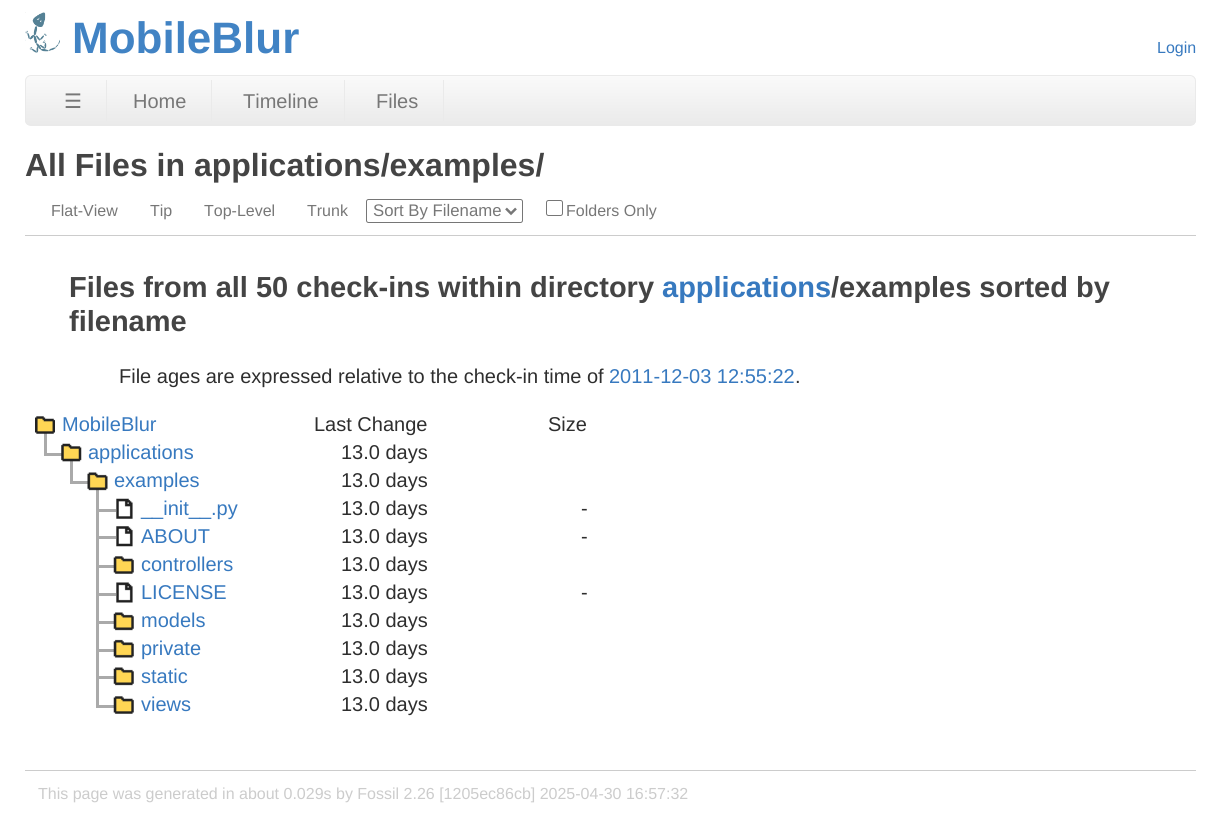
#include <cairo.h>
#include <math.h>
#include <stddef.h>

static cairo_t *ctx;

static void use_color(int r, int g, int b) {
    cairo_set_source_rgb(ctx, r / 255.0, g / 255.0, b / 255.0);
}

static void round_rect(double x, double y, double w, double h, double r) {
    cairo_new_sub_path(ctx);
    cairo_arc(ctx, x + w - r, y + h - r, r, 0, M_PI / 2);
    cairo_arc(ctx, x + r, y + h - r, r, M_PI / 2, M_PI);
    cairo_arc(ctx, x + r, y + r, r, M_PI, 1.5 * M_PI);
    cairo_arc(ctx, x + w - r, y + r, r, 1.5 * M_PI, 2 * M_PI);
    cairo_close_path(ctx);
}

static void picture(const char *path, double x, double y, double w, double h) {
    cairo_surface_t *image = cairo_image_surface_create_from_png(path);
    cairo_save(ctx);
    cairo_set_source_surface(ctx, image, x, y);
    cairo_rectangle(ctx, x, y, w, h);
    cairo_fill(ctx);
    cairo_restore(ctx);
    cairo_surface_destroy(image);
}

int main(void) {
    cairo_surface_t *surface = cairo_image_surface_create(CAIRO_FORMAT_RGB24, 1221, 833);
    ctx = cairo_create(surface);
    cairo_font_options_t *options = cairo_font_options_create();
    cairo_font_options_set_hint_metrics(options, CAIRO_HINT_METRICS_OFF);
    cairo_font_options_set_hint_style(options, CAIRO_HINT_STYLE_NONE);
    cairo_set_font_options(ctx, options);
    cairo_set_miter_limit(ctx, 4);
    cairo_pattern_t *gradient;
    use_color(255, 255, 255);
    cairo_paint(ctx);
    picture("img1.png", 25, 12, 35, 41);
    cairo_select_font_face(ctx, "Liberation Sans", CAIRO_FONT_SLANT_NORMAL, CAIRO_FONT_WEIGHT_BOLD);
    cairo_set_font_size(ctx, 44);
    use_color(65, 131, 196);
    cairo_move_to(ctx, 72, 53);
    cairo_show_text(ctx, "MobileBlur");
    cairo_select_font_face(ctx, "Liberation Sans", CAIRO_FONT_SLANT_NORMAL, CAIRO_FONT_WEIGHT_NORMAL);
    cairo_set_font_size(ctx, 16);
    use_color(55, 121, 191);
    cairo_move_to(ctx, 1157, 53);
    cairo_show_text(ctx, "Login");
    cairo_save(ctx);
    round_rect(25, 75, 1171, 51, 6);
    cairo_clip(ctx);
    gradient = cairo_pattern_create_linear(611, 76, 611, 125);
    cairo_pattern_add_color_stop_rgba(gradient, 0, 0.98, 0.98, 0.98, 1);
    cairo_pattern_add_color_stop_rgba(gradient, 1, 0.918, 0.918, 0.918, 1);
    cairo_set_source(ctx, gradient);
    cairo_pattern_destroy(gradient);
    cairo_rectangle(ctx, 25, 76, 1171, 49);
    cairo_fill(ctx);
    cairo_restore(ctx);
    round_rect(25.5, 75.5, 1170, 50, 5.5);
    use_color(234, 234, 234);
    cairo_set_line_width(ctx, 1);
    cairo_stroke(ctx);
    cairo_select_font_face(ctx, "DejaVu Sans", CAIRO_FONT_SLANT_NORMAL, CAIRO_FONT_WEIGHT_NORMAL);
    cairo_set_font_size(ctx, 20);
    use_color(119, 119, 119);
    cairo_move_to(ctx, 64, 108);
    cairo_show_text(ctx, "☰");
    use_color(234, 234, 234);
    cairo_rectangle(ctx, 106, 80, 1, 41);
    cairo_fill(ctx);
    cairo_select_font_face(ctx, "Liberation Sans", CAIRO_FONT_SLANT_NORMAL, CAIRO_FONT_WEIGHT_NORMAL);
    use_color(119, 119, 119);
    cairo_move_to(ctx, 133, 108);
    cairo_show_text(ctx, "Home");
    use_color(234, 234, 234);
    cairo_rectangle(ctx, 211, 80, 1, 41);
    cairo_fill(ctx);
    use_color(119, 119, 119);
    cairo_move_to(ctx, 243, 108);
    cairo_show_text(ctx, "Timeline");
    use_color(234, 234, 234);
    cairo_rectangle(ctx, 344, 80, 1, 41);
    cairo_fill(ctx);
    use_color(119, 119, 119);
    cairo_move_to(ctx, 376, 108);
    cairo_show_text(ctx, "Files");
    use_color(234, 234, 234);
    cairo_rectangle(ctx, 443, 80, 1, 41);
    cairo_fill(ctx);
    cairo_select_font_face(ctx, "Liberation Sans", CAIRO_FONT_SLANT_NORMAL, CAIRO_FONT_WEIGHT_BOLD);
    cairo_set_font_size(ctx, 32);
    use_color(68, 68, 68);
    cairo_move_to(ctx, 25, 176);
    cairo_show_text(ctx, "All Files in applications/examples/");
    use_color(204, 204, 204);
    cairo_rectangle(ctx, 25, 235, 1171, 1);
    cairo_fill(ctx);
    cairo_select_font_face(ctx, "Liberation Sans", CAIRO_FONT_SLANT_NORMAL, CAIRO_FONT_WEIGHT_NORMAL);
    cairo_set_font_size(ctx, 16);
    use_color(119, 119, 119);
    cairo_move_to(ctx, 51, 216);
    cairo_show_text(ctx, "Flat-View");
    cairo_move_to(ctx, 150, 216);
    cairo_show_text(ctx, "Tip");
    cairo_move_to(ctx, 204, 216);
    cairo_show_text(ctx, "Top-Level");
    cairo_move_to(ctx, 307, 216);
    cairo_show_text(ctx, "Trunk");
    round_rect(366.5, 199.5, 156, 23, 2);
    use_color(118, 118, 118);
    cairo_stroke(ctx);
    cairo_new_path(ctx);
    cairo_move_to(ctx, 506, 208.5);
    cairo_line_to(ctx, 511, 213.5);
    cairo_line_to(ctx, 516, 208.5);
    use_color(119, 119, 119);
    cairo_set_line_width(ctx, 2.5);
    cairo_stroke(ctx);
    cairo_set_font_size(ctx, 16.75);
    cairo_move_to(ctx, 373, 216);
    cairo_show_text(ctx, "Sort By Filename");
    round_rect(546.5, 200.5, 16, 15, 2);
    use_color(118, 118, 118);
    cairo_set_line_width(ctx, 1);
    cairo_stroke(ctx);
    cairo_set_font_size(ctx, 16);
    use_color(119, 119, 119);
    cairo_move_to(ctx, 566, 216);
    cairo_show_text(ctx, "Folders Only");
    cairo_select_font_face(ctx, "Liberation Sans", CAIRO_FONT_SLANT_NORMAL, CAIRO_FONT_WEIGHT_BOLD);
    cairo_set_font_size(ctx, 29);
    use_color(68, 68, 68);
    cairo_move_to(ctx, 69, 297);
    cairo_show_text(ctx, "Files from all 50 check-ins within directory");
    use_color(55, 121, 191);
    cairo_move_to(ctx, 662, 297);
    cairo_show_text(ctx, "applications");
    use_color(68, 68, 68);
    cairo_move_to(ctx, 831, 297);
    cairo_show_text(ctx, "/examples sorted by");
    cairo_move_to(ctx, 69, 331);
    cairo_show_text(ctx, "filename");
    cairo_select_font_face(ctx, "Liberation Sans", CAIRO_FONT_SLANT_NORMAL, CAIRO_FONT_WEIGHT_NORMAL);
    cairo_set_font_size(ctx, 20);
    use_color(46, 46, 46);
    cairo_move_to(ctx, 119, 383);
    cairo_show_text(ctx, "File ages are expressed relative to the check-in time of");
    use_color(55, 121, 191);
    cairo_move_to(ctx, 609, 383);
    cairo_show_text(ctx, "2011-12-03 12:55:22");
    use_color(46, 46, 46);
    cairo_move_to(ctx, 795, 383);
    cairo_show_text(ctx, ".");
    use_color(170, 170, 170);
    cairo_rectangle(ctx, 44, 453, 20, 3);
    cairo_fill(ctx);
    cairo_rectangle(ctx, 44, 433, 3, 22);
    cairo_fill(ctx);
    picture("img2.png", 35, 416, 20, 18);
    use_color(55, 121, 191);
    cairo_move_to(ctx, 62, 431);
    cairo_show_text(ctx, "MobileBlur");
    use_color(46, 46, 46);
    cairo_move_to(ctx, 314, 431);
    cairo_show_text(ctx, "Last Change");
    cairo_move_to(ctx, 548, 431);
    cairo_show_text(ctx, "Size");
    use_color(170, 170, 170);
    cairo_rectangle(ctx, 70, 481, 20, 3);
    cairo_fill(ctx);
    cairo_rectangle(ctx, 70, 461, 3, 23);
    cairo_fill(ctx);
    picture("img3.png", 61, 443, 21, 19);
    use_color(55, 121, 191);
    cairo_move_to(ctx, 88, 459);
    cairo_show_text(ctx, "applications");
    use_color(46, 46, 46);
    cairo_move_to(ctx, 341, 459);
    cairo_show_text(ctx, "13.0 days");
    use_color(170, 170, 170);
    cairo_rectangle(ctx, 96, 509, 20, 3);
    cairo_fill(ctx);
    cairo_rectangle(ctx, 96, 489, 3, 22);
    cairo_fill(ctx);
    picture("img4.png", 87, 472, 21, 19);
    use_color(55, 121, 191);
    cairo_move_to(ctx, 114, 487);
    cairo_show_text(ctx, "examples");
    use_color(46, 46, 46);
    cairo_move_to(ctx, 341, 487);
    cairo_show_text(ctx, "13.0 days");
    picture("img5.png", 116, 498, 17, 21);
    use_color(55, 121, 191);
    cairo_move_to(ctx, 141, 515);
    cairo_show_text(ctx, "__init__.py");
    use_color(46, 46, 46);
    cairo_move_to(ctx, 341, 515);
    cairo_show_text(ctx, "13.0 days");
    cairo_move_to(ctx, 581, 515);
    cairo_show_text(ctx, "-");
    use_color(170, 170, 170);
    cairo_rectangle(ctx, 96, 536, 20, 3);
    cairo_fill(ctx);
    cairo_rectangle(ctx, 96, 506, 3, 33);
    cairo_fill(ctx);
    picture("img6.png", 116, 526, 17, 21);
    use_color(55, 121, 191);
    cairo_move_to(ctx, 141, 543);
    cairo_show_text(ctx, "ABOUT");
    use_color(46, 46, 46);
    cairo_move_to(ctx, 341, 543);
    cairo_show_text(ctx, "13.0 days");
    cairo_move_to(ctx, 581, 543);
    cairo_show_text(ctx, "-");
    use_color(170, 170, 170);
    cairo_rectangle(ctx, 96, 565, 20, 3);
    cairo_fill(ctx);
    cairo_rectangle(ctx, 96, 535, 3, 33);
    cairo_fill(ctx);
    picture("img7.png", 113, 556, 21, 18);
    use_color(55, 121, 191);
    cairo_move_to(ctx, 141, 571);
    cairo_show_text(ctx, "controllers");
    use_color(46, 46, 46);
    cairo_move_to(ctx, 341, 571);
    cairo_show_text(ctx, "13.0 days");
    use_color(170, 170, 170);
    cairo_rectangle(ctx, 96, 593, 20, 3);
    cairo_fill(ctx);
    cairo_rectangle(ctx, 96, 563, 3, 32);
    cairo_fill(ctx);
    picture("img8.png", 116, 582, 17, 21);
    use_color(55, 121, 191);
    cairo_move_to(ctx, 141, 599);
    cairo_show_text(ctx, "LICENSE");
    use_color(46, 46, 46);
    cairo_move_to(ctx, 341, 599);
    cairo_show_text(ctx, "13.0 days");
    cairo_move_to(ctx, 581, 599);
    cairo_show_text(ctx, "-");
    use_color(170, 170, 170);
    cairo_rectangle(ctx, 96, 621, 20, 3);
    cairo_fill(ctx);
    cairo_rectangle(ctx, 96, 591, 3, 33);
    cairo_fill(ctx);
    picture("img9.png", 113, 612, 21, 19);
    use_color(55, 121, 191);
    cairo_move_to(ctx, 141, 627);
    cairo_show_text(ctx, "models");
    use_color(46, 46, 46);
    cairo_move_to(ctx, 341, 627);
    cairo_show_text(ctx, "13.0 days");
    use_color(170, 170, 170);
    cairo_rectangle(ctx, 96, 649, 20, 3);
    cairo_fill(ctx);
    cairo_rectangle(ctx, 96, 619, 3, 32);
    cairo_fill(ctx);
    picture("img10.png", 113, 639, 21, 19);
    use_color(55, 121, 191);
    cairo_move_to(ctx, 141, 655);
    cairo_show_text(ctx, "private");
    use_color(46, 46, 46);
    cairo_move_to(ctx, 341, 655);
    cairo_show_text(ctx, "13.0 days");
    use_color(170, 170, 170);
    cairo_rectangle(ctx, 96, 676, 20, 3);
    cairo_fill(ctx);
    cairo_rectangle(ctx, 96, 646, 3, 33);
    cairo_fill(ctx);
    picture("img9.png", 113, 667, 21, 19);
    use_color(55, 121, 191);
    cairo_move_to(ctx, 141, 683);
    cairo_show_text(ctx, "static");
    use_color(46, 46, 46);
    cairo_move_to(ctx, 341, 683);
    cairo_show_text(ctx, "13.0 days");
    use_color(170, 170, 170);
    cairo_rectangle(ctx, 96, 705, 20, 3);
    cairo_fill(ctx);
    cairo_rectangle(ctx, 96, 675, 3, 33);
    cairo_fill(ctx);
    picture("img7.png", 113, 696, 21, 18);
    use_color(55, 121, 191);
    cairo_move_to(ctx, 141, 711);
    cairo_show_text(ctx, "views");
    use_color(46, 46, 46);
    cairo_move_to(ctx, 341, 711);
    cairo_show_text(ctx, "13.0 days");
    use_color(204, 204, 204);
    cairo_rectangle(ctx, 25, 770, 1171, 1);
    cairo_fill(ctx);
    cairo_set_font_size(ctx, 16);
    cairo_move_to(ctx, 38, 799);
    cairo_show_text(ctx, "This page was generated in about 0.029s by Fossil 2.26 [1205ec86cb] 2025-04-30 16:57:32");
    cairo_surface_write_to_png(surface, "result.png");
    cairo_font_options_destroy(options);
    cairo_destroy(ctx);
    cairo_surface_destroy(surface);
    return 0;
}
